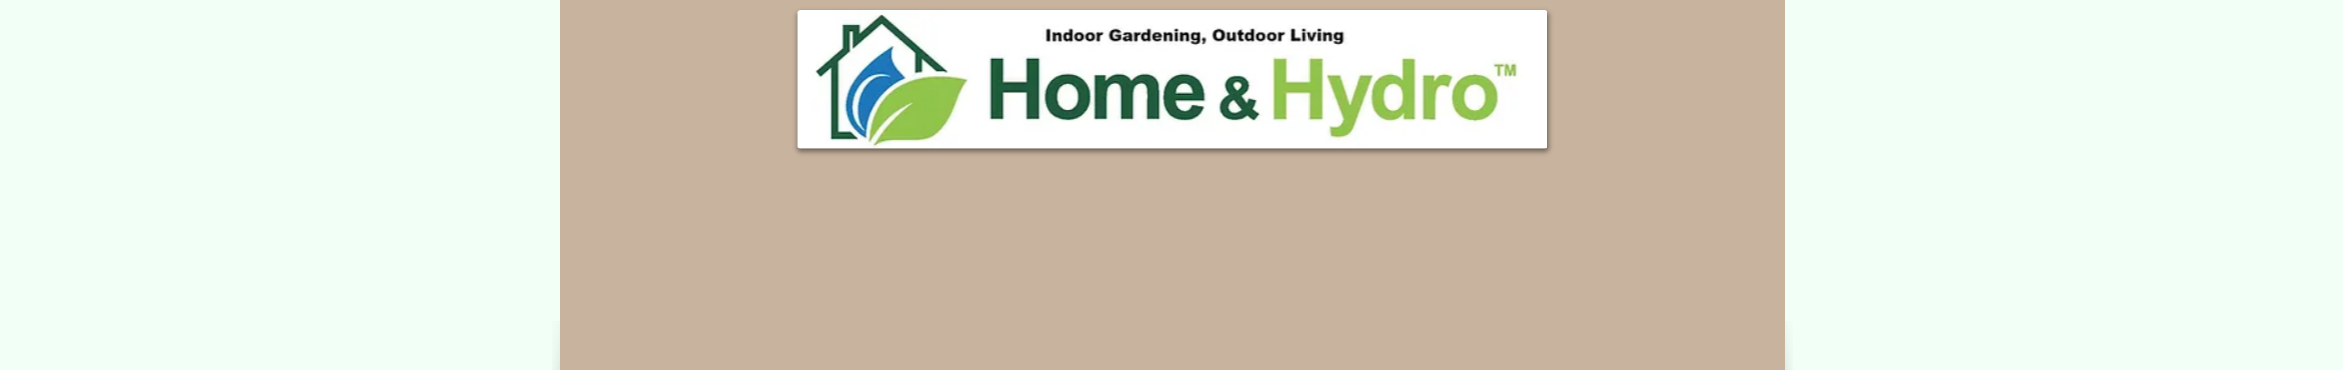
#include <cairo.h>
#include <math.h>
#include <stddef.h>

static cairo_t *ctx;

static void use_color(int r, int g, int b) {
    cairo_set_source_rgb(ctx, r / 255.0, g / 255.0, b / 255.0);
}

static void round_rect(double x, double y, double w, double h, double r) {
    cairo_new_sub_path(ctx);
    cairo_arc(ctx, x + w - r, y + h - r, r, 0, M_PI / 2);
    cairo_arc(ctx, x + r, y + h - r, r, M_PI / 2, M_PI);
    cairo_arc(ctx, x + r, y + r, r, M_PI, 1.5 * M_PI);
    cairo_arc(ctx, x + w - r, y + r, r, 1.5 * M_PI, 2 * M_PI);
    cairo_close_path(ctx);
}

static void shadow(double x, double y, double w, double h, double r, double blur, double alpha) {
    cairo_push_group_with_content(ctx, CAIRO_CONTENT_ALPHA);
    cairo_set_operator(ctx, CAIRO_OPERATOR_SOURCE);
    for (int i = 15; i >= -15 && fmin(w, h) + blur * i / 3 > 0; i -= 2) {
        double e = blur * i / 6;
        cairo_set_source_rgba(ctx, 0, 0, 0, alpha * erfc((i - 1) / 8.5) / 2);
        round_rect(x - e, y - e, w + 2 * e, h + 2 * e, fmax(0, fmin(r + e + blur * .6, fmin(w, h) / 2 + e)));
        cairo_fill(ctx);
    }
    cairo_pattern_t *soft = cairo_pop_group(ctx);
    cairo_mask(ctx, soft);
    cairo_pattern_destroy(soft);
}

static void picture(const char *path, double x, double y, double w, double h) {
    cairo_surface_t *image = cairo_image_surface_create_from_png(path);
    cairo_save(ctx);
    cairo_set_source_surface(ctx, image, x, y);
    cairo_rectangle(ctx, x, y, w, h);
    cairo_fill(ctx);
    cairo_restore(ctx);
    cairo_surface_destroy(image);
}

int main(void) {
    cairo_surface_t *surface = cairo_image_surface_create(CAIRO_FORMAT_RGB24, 2343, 370);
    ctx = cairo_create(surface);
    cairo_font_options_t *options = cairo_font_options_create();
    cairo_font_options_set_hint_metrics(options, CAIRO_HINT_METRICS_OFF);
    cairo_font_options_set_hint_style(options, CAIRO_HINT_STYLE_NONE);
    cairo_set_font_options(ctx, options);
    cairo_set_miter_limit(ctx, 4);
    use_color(241, 255, 246);
    cairo_paint(ctx);
    picture("img1.png", 552, 321, 8, 49);
    use_color(200, 179, 158);
    cairo_rectangle(ctx, 560, 0, 1225, 370);
    cairo_fill(ctx);
    picture("img2.png", 1785, 321, 8, 49);
    use_color(0, 0, 0);
    shadow(798, 13, 750, 138, 2.5, 3, 0.53);
    picture("img3.png", 797, 10, 750, 139);
    cairo_surface_write_to_png(surface, "result.png");
    cairo_font_options_destroy(options);
    cairo_destroy(ctx);
    cairo_surface_destroy(surface);
    return 0;
}
